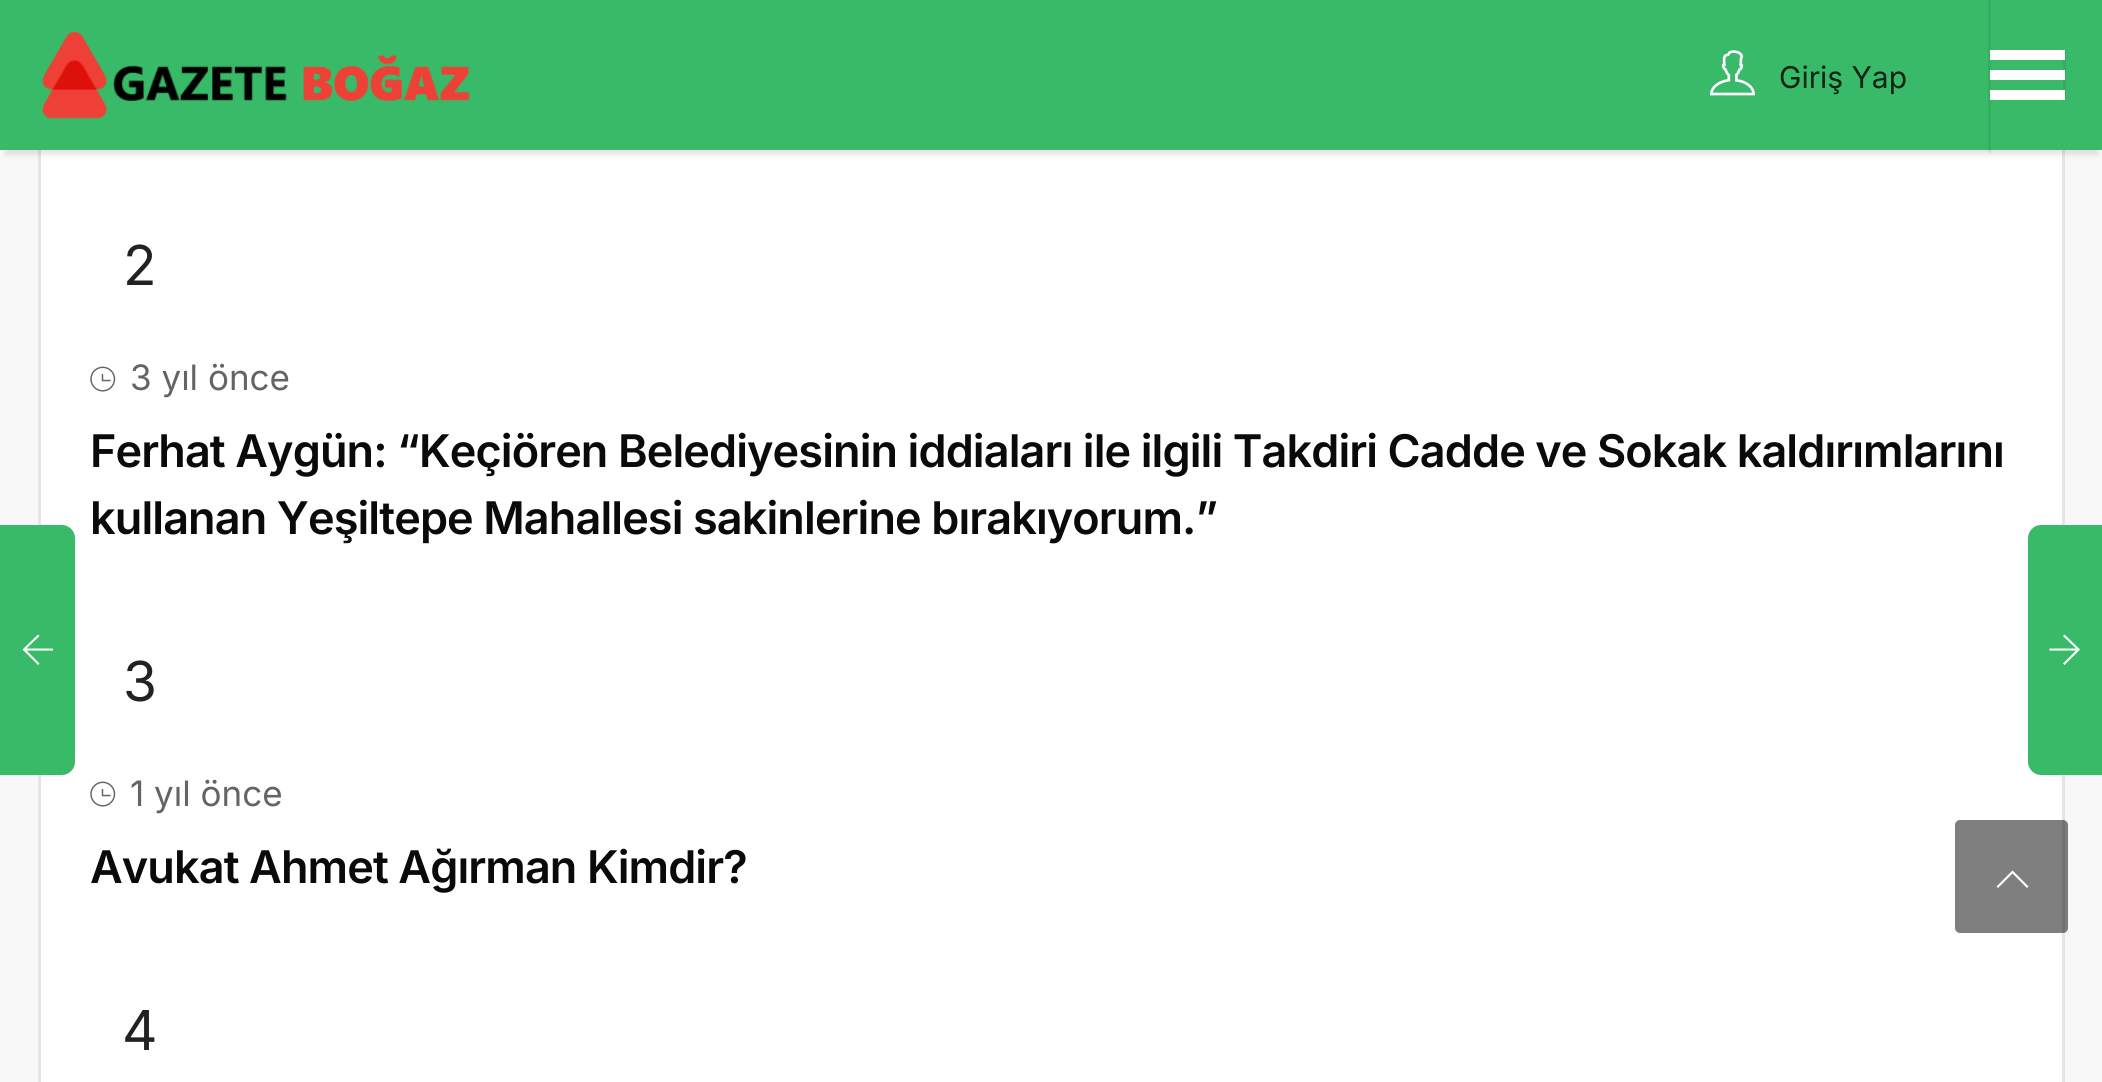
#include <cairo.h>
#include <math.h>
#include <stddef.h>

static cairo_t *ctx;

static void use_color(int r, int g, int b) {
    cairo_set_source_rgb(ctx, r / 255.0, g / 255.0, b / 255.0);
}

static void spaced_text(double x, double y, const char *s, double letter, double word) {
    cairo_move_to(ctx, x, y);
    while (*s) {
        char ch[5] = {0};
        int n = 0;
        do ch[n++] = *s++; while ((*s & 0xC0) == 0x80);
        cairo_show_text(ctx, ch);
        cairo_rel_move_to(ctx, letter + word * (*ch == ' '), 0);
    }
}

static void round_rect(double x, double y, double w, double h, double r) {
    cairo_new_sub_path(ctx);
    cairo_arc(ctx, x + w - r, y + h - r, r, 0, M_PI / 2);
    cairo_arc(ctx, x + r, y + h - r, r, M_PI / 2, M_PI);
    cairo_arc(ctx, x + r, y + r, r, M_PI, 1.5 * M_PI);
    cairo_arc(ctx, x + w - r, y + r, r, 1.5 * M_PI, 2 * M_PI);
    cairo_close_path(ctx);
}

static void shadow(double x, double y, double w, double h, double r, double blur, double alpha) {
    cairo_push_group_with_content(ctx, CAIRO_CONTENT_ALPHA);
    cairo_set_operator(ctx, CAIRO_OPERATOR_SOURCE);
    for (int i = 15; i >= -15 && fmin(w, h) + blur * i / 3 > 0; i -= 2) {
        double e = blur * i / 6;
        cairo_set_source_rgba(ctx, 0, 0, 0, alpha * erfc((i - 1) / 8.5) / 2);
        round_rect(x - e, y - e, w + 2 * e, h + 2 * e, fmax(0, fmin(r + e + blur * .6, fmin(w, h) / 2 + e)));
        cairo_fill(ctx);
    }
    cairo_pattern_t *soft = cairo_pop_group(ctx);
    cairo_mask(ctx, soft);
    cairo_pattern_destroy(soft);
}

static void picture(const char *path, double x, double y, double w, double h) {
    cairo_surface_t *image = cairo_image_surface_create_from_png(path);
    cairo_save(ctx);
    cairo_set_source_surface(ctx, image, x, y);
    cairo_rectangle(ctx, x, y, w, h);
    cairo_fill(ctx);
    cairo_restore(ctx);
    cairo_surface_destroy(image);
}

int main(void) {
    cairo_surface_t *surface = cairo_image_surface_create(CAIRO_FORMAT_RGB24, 2102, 1082);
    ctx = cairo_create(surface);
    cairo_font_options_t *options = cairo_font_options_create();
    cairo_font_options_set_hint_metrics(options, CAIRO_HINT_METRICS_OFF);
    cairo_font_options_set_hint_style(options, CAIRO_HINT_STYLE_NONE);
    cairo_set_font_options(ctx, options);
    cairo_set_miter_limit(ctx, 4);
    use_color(248, 248, 248);
    cairo_paint(ctx);
    use_color(255, 255, 255);
    cairo_rectangle(ctx, 41, 150, 2021, 932);
    cairo_fill(ctx);
    cairo_rectangle(ctx, 39.5, -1.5, 2024, 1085);
    use_color(229, 229, 229);
    cairo_set_line_width(ctx, 3);
    cairo_stroke(ctx);
    use_color(0, 0, 0);
    shadow(5, 15, 2093, 140, 0, 2.5, 0.1);
    use_color(57, 186, 104);
    cairo_rectangle(ctx, 0, 0, 2102, 150);
    cairo_fill(ctx);
    picture("img1.png", 42, 31, 428, 88);
    cairo_set_source_rgba(ctx, 0, 0, 0, 0.07);
    cairo_rectangle(ctx, 1988, 0, 3, 153);
    cairo_fill(ctx);
    picture("img2.png", 1710, 50, 45, 46);
    cairo_select_font_face(ctx, "Inter", CAIRO_FONT_SLANT_NORMAL, CAIRO_FONT_WEIGHT_NORMAL);
    cairo_set_font_size(ctx, 30);
    use_color(11, 37, 21);
    cairo_move_to(ctx, 1779, 88);
    cairo_show_text(ctx, "Giriş Yap");
    use_color(53, 173, 97);
    cairo_rectangle(ctx, 2063, 50, 3, 50);
    cairo_fill(ctx);
    use_color(255, 255, 255);
    cairo_rectangle(ctx, 1990, 50, 75, 10);
    cairo_fill(ctx);
    cairo_rectangle(ctx, 1990, 70, 75, 10);
    cairo_fill(ctx);
    cairo_rectangle(ctx, 1990, 90, 75, 10);
    cairo_fill(ctx);
    cairo_set_font_size(ctx, 55);
    use_color(34, 34, 34);
    cairo_move_to(ctx, 123, 285);
    cairo_show_text(ctx, "2");
    picture("img3.png", 90, 366, 26, 26);
    cairo_set_font_size(ctx, 35);
    use_color(100, 100, 100);
    cairo_move_to(ctx, 130, 390);
    cairo_show_text(ctx, "3 yıl önce");
    cairo_select_font_face(ctx, "Inter SemiBold", CAIRO_FONT_SLANT_NORMAL, CAIRO_FONT_WEIGHT_NORMAL);
    cairo_set_font_size(ctx, 45);
    use_color(10, 10, 10);
    spaced_text(90, 467, "Ferhat Aygün: “Keçiören Belediyesinin iddiaları ile ilgili Takdiri Cadde ve Sokak kaldırımlarını", -0.9, 0);
    spaced_text(90, 534, "kullanan Yeşiltepe Mahallesi sakinlerine bırakıyorum.”", -0.9, 0);
    cairo_select_font_face(ctx, "Inter", CAIRO_FONT_SLANT_NORMAL, CAIRO_FONT_WEIGHT_NORMAL);
    cairo_set_font_size(ctx, 55);
    use_color(34, 34, 34);
    cairo_move_to(ctx, 123, 701);
    cairo_show_text(ctx, "3");
    picture("img3.png", 90, 781, 26, 26);
    cairo_set_font_size(ctx, 35);
    use_color(100, 100, 100);
    cairo_move_to(ctx, 130, 806);
    cairo_show_text(ctx, "1 yıl önce");
    cairo_select_font_face(ctx, "Inter SemiBold", CAIRO_FONT_SLANT_NORMAL, CAIRO_FONT_WEIGHT_NORMAL);
    cairo_set_font_size(ctx, 45);
    use_color(10, 10, 10);
    spaced_text(90, 883, "Avukat Ahmet Ağırman Kimdir?", -0.9, 0);
    cairo_select_font_face(ctx, "Inter", CAIRO_FONT_SLANT_NORMAL, CAIRO_FONT_WEIGHT_NORMAL);
    cairo_set_font_size(ctx, 55);
    use_color(34, 34, 34);
    cairo_move_to(ctx, 122, 1050);
    cairo_show_text(ctx, "4");
    use_color(57, 186, 104);
    cairo_new_path(ctx);
    cairo_move_to(ctx, 0, 525);
    cairo_line_to(ctx, 62, 525);
    cairo_curve_to(ctx, 69, 525, 75, 531, 75, 538);
    cairo_line_to(ctx, 75, 762);
    cairo_curve_to(ctx, 75, 769, 69, 775, 62, 775);
    cairo_line_to(ctx, 0, 775);
    cairo_close_path(ctx);
    cairo_fill(ctx);
    use_color(255, 255, 255);
    cairo_new_path(ctx);
    cairo_move_to(ctx, 53, 650.5);
    cairo_line_to(ctx, 26.5, 650.5);
    cairo_line_to(ctx, 39.5, 663.5);
    cairo_line_to(ctx, 38, 665);
    cairo_line_to(ctx, 22.5, 649.5);
    cairo_line_to(ctx, 38, 634.5);
    cairo_line_to(ctx, 39.5, 636);
    cairo_line_to(ctx, 26.5, 648.5);
    cairo_line_to(ctx, 53, 648.5);
    cairo_close_path(ctx);
    cairo_fill(ctx);
    use_color(57, 186, 104);
    cairo_new_path(ctx);
    cairo_move_to(ctx, 2041, 525);
    cairo_line_to(ctx, 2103, 525);
    cairo_line_to(ctx, 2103, 775);
    cairo_line_to(ctx, 2041, 775);
    cairo_curve_to(ctx, 2034, 775, 2028, 769, 2028, 762);
    cairo_line_to(ctx, 2028, 538);
    cairo_curve_to(ctx, 2028, 531, 2034, 525, 2041, 525);
    cairo_close_path(ctx);
    cairo_fill(ctx);
    use_color(255, 255, 255);
    cairo_new_path(ctx);
    cairo_move_to(ctx, 2080, 649.5);
    cairo_line_to(ctx, 2064.5, 665);
    cairo_line_to(ctx, 2063, 663.5);
    cairo_line_to(ctx, 2076, 650.5);
    cairo_line_to(ctx, 2049.5, 650.5);
    cairo_line_to(ctx, 2049.5, 648.5);
    cairo_line_to(ctx, 2076, 648.5);
    cairo_line_to(ctx, 2063, 636);
    cairo_line_to(ctx, 2064.5, 634.5);
    cairo_close_path(ctx);
    cairo_fill(ctx);
    cairo_set_source_rgba(ctx, 0, 0, 0, 0.5);
    round_rect(1955, 820, 113, 113, 5);
    cairo_fill(ctx);
    use_color(255, 255, 255);
    cairo_new_path(ctx);
    cairo_move_to(ctx, 2028.5, 886.5);
    cairo_line_to(ctx, 2027, 888);
    cairo_line_to(ctx, 2012.5, 873.5);
    cairo_line_to(ctx, 1998, 888);
    cairo_line_to(ctx, 1996.5, 886.5);
    cairo_line_to(ctx, 2012.5, 870.5);
    cairo_close_path(ctx);
    cairo_fill(ctx);
    cairo_surface_write_to_png(surface, "result.png");
    cairo_font_options_destroy(options);
    cairo_destroy(ctx);
    cairo_surface_destroy(surface);
    return 0;
}
